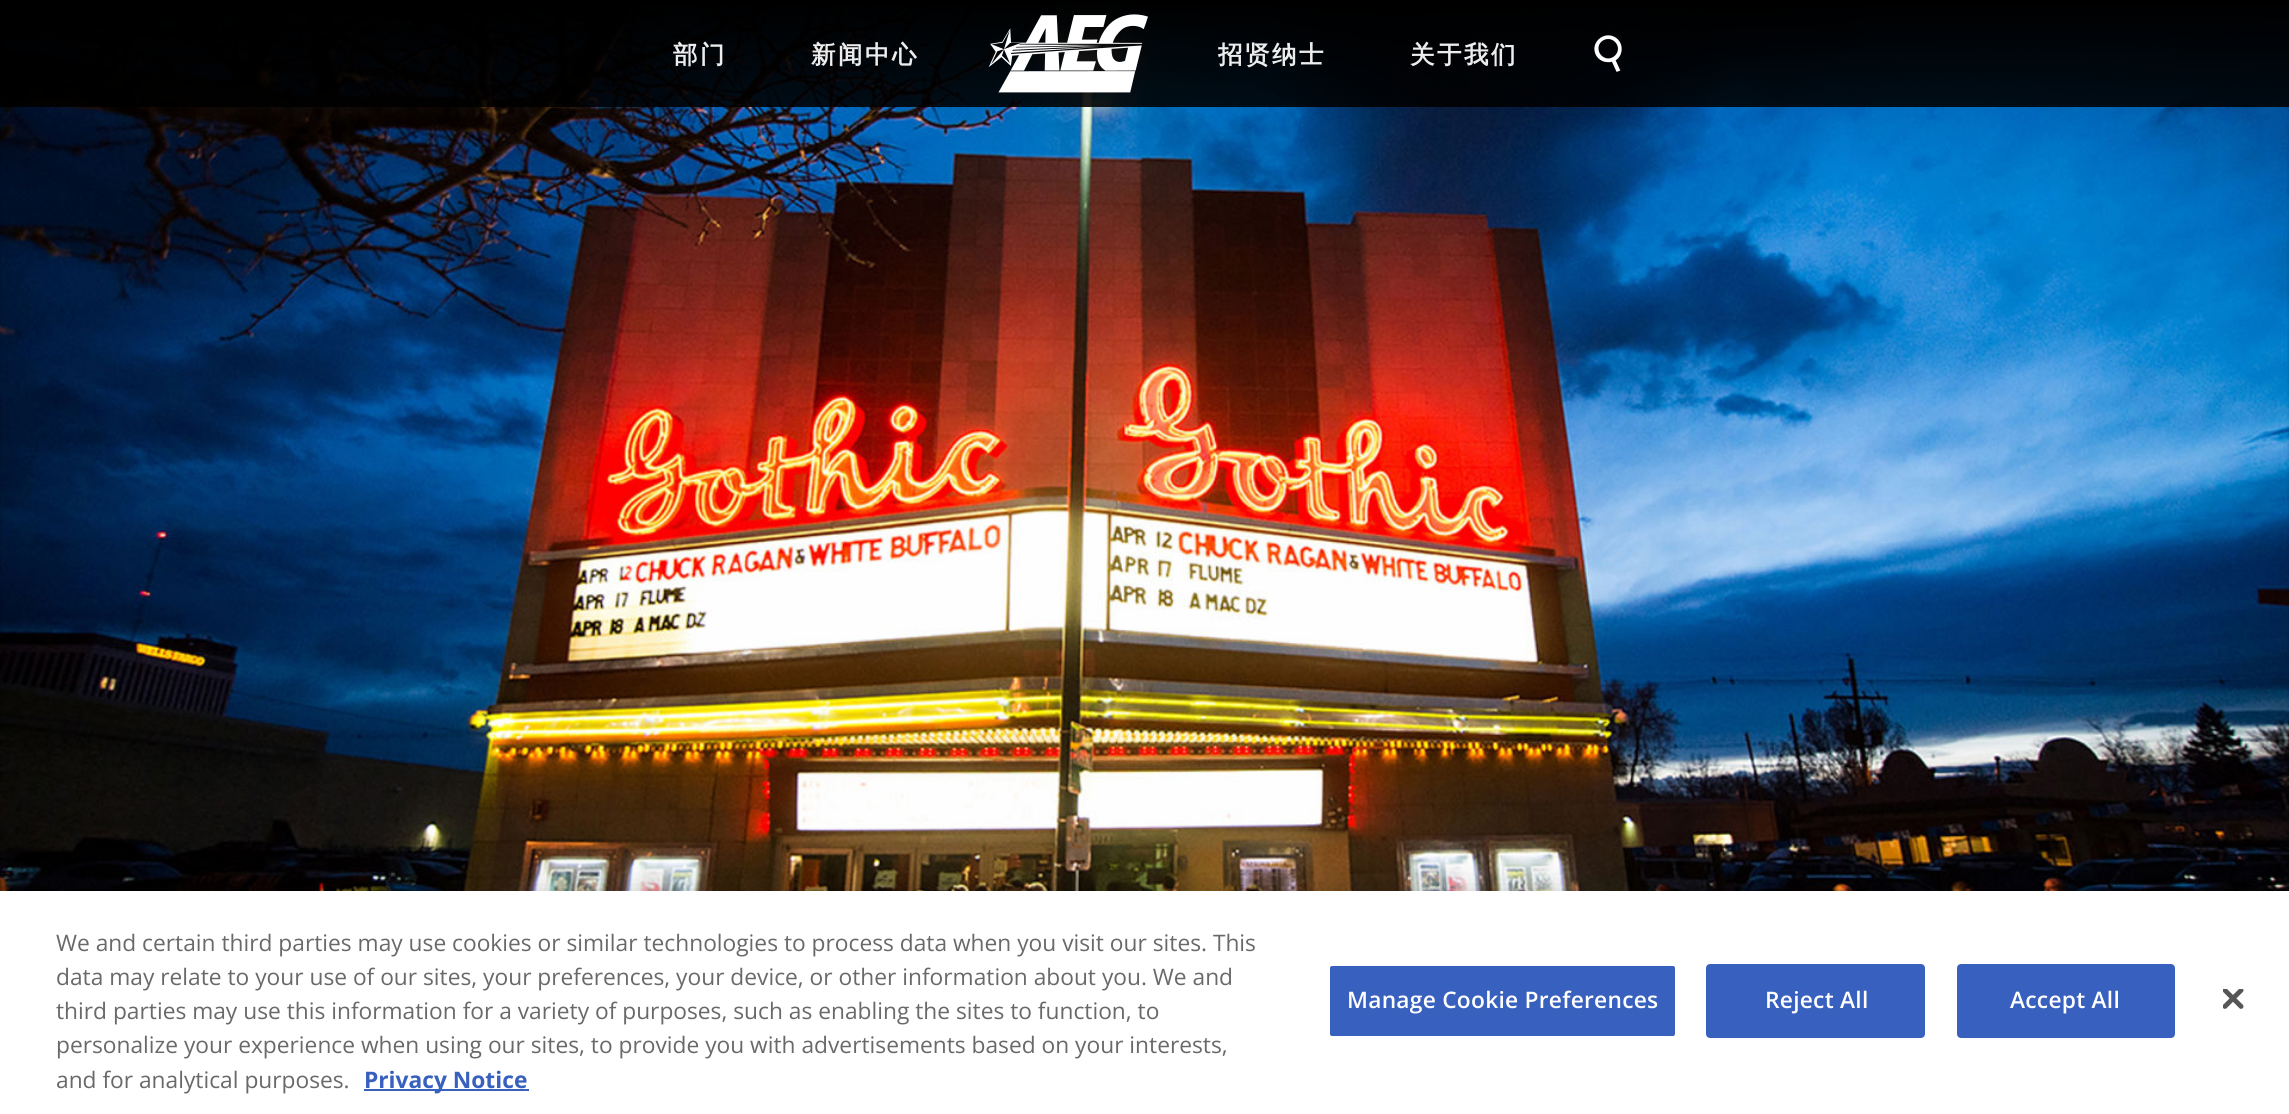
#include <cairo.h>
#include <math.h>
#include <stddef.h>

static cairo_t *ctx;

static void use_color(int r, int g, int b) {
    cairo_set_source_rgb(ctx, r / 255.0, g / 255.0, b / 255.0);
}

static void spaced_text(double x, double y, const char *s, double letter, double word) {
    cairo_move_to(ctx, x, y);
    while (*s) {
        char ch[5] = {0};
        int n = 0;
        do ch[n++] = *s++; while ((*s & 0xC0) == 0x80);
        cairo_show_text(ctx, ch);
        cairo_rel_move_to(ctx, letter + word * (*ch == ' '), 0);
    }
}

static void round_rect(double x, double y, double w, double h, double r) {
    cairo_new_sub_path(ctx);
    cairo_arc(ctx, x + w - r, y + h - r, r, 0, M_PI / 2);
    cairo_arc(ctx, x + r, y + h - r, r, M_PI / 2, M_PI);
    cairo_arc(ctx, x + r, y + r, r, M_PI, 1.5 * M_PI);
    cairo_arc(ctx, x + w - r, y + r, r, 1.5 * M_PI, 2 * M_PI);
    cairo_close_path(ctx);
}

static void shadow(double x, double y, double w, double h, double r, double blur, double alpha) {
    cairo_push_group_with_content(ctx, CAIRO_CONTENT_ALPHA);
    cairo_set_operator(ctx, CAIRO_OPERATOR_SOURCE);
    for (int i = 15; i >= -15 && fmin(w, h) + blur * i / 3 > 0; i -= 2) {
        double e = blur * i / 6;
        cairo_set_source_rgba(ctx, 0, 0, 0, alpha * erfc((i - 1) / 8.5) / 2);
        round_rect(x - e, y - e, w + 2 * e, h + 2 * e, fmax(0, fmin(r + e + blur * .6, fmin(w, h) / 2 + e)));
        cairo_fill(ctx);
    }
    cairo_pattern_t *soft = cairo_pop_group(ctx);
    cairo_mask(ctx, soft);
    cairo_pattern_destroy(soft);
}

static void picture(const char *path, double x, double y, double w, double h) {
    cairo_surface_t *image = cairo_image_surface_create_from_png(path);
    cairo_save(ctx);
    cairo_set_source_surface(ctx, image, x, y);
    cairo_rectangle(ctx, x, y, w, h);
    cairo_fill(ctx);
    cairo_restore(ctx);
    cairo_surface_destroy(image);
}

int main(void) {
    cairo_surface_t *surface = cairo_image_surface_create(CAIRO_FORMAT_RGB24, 2289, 1114);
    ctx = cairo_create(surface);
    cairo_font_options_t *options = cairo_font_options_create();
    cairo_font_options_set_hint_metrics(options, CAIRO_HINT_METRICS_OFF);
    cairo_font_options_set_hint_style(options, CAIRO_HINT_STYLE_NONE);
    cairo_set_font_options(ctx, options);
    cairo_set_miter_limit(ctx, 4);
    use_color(255, 255, 255);
    cairo_paint(ctx);
    picture("img1.png", 0, 0, 2289, 891);
    cairo_select_font_face(ctx, "WenQuanYi Zen Hei", CAIRO_FONT_SLANT_NORMAL, CAIRO_FONT_WEIGHT_BOLD);
    cairo_set_font_size(ctx, 24.5);
    use_color(237, 237, 237);
    spaced_text(673, 63, "部门", 2.5, 0);
    spaced_text(811, 63, "新闻中心", 2.5, 0);
    picture("img2.png", 989, 14, 159, 79);
    spaced_text(1218, 63, "招贤纳士", 2.5, 0);
    spaced_text(1410, 63, "关于我们", 2.5, 0);
    picture("img3.png", 1594, 35, 28, 37);
    use_color(0, 0, 0);
    shadow(0, 891, 2289, 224, 0, 16, 0.2);
    use_color(255, 255, 255);
    cairo_rectangle(ctx, 0, 891, 2289, 223);
    cairo_fill(ctx);
    cairo_select_font_face(ctx, "Open Sans", CAIRO_FONT_SLANT_NORMAL, CAIRO_FONT_WEIGHT_NORMAL);
    cairo_set_font_size(ctx, 22.75);
    use_color(105, 105, 105);
    cairo_move_to(ctx, 56, 951);
    cairo_show_text(ctx, "We and certain third parties may use cookies or similar technologies to process data when you visit our sites. This");
    cairo_move_to(ctx, 56, 985);
    cairo_show_text(ctx, "data may relate to your use of our sites, your preferences, your device, or other information about you. We and");
    cairo_move_to(ctx, 56, 1019);
    cairo_show_text(ctx, "third parties may use this information for a variety of purposes, such as enabling the sites to function, to");
    cairo_move_to(ctx, 56, 1053);
    cairo_show_text(ctx, "personalize your experience when using our sites, to provide you with advertisements based on your interests,");
    cairo_move_to(ctx, 56, 1088);
    cairo_show_text(ctx, "and for analytical purposes.");
    use_color(56, 96, 190);
    cairo_rectangle(ctx, 364, 1089, 165, 2);
    cairo_fill(ctx);
    cairo_select_font_face(ctx, "Open Sans", CAIRO_FONT_SLANT_NORMAL, CAIRO_FONT_WEIGHT_BOLD);
    cairo_move_to(ctx, 364, 1088);
    cairo_show_text(ctx, "Privacy Notice");
    round_rect(1329, 965, 347, 72, 3);
    cairo_fill_preserve(ctx);
    use_color(255, 255, 255);
    cairo_stroke(ctx);
    cairo_select_font_face(ctx, "Open Sans SemiBold", CAIRO_FONT_SLANT_NORMAL, CAIRO_FONT_WEIGHT_NORMAL);
    spaced_text(1347, 1008, "Manage Cookie Preferences", 0.25, 0);
    use_color(56, 96, 190);
    round_rect(1707, 965, 217, 72, 3);
    cairo_fill_preserve(ctx);
    cairo_stroke(ctx);
    use_color(255, 255, 255);
    spaced_text(1765, 1008, "Reject All", 0.25, 0);
    use_color(56, 96, 190);
    round_rect(1958, 965, 216, 72, 3);
    cairo_fill_preserve(ctx);
    cairo_stroke(ctx);
    use_color(255, 255, 255);
    spaced_text(2010, 1008, "Accept All", 0.25, 0);
    picture("img4.png", 2223, 989, 21, 20);
    cairo_surface_write_to_png(surface, "result.png");
    cairo_font_options_destroy(options);
    cairo_destroy(ctx);
    cairo_surface_destroy(surface);
    return 0;
}
